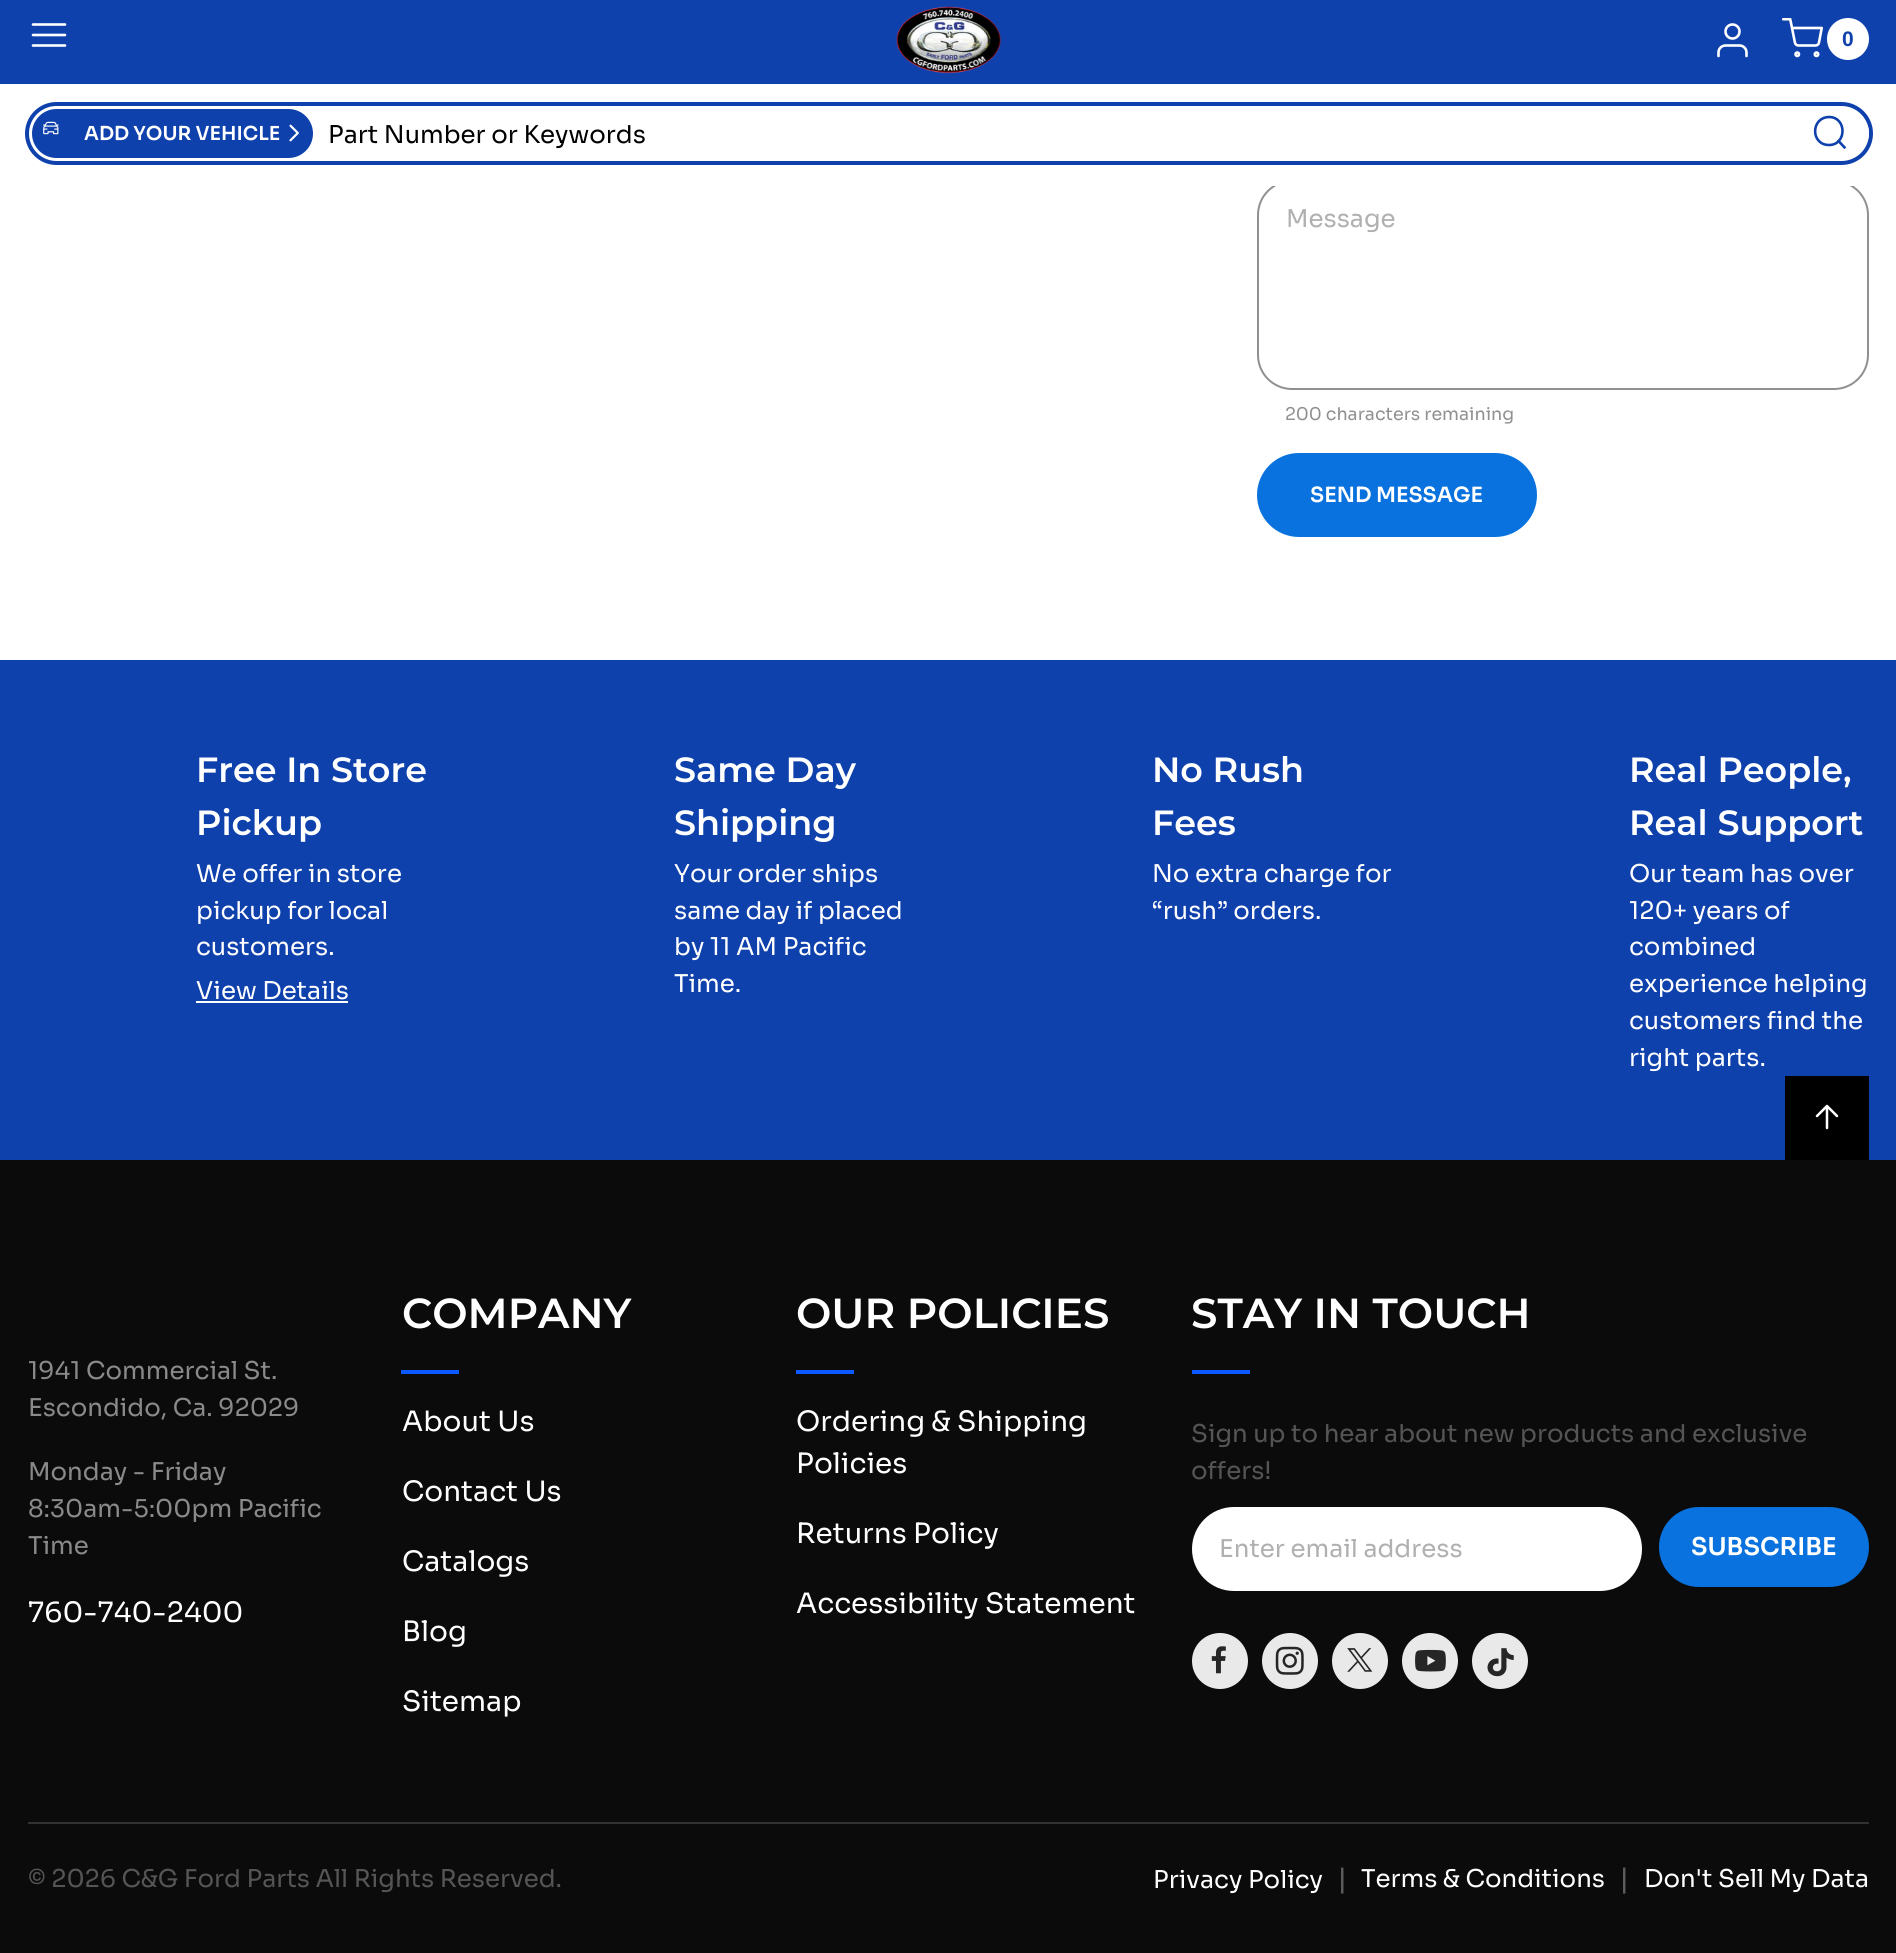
#include <cairo.h>
#include <math.h>
#include <stddef.h>

static cairo_t *ctx;

static void use_color(int r, int g, int b) {
    cairo_set_source_rgb(ctx, r / 255.0, g / 255.0, b / 255.0);
}

static void round_rect(double x, double y, double w, double h, double r) {
    cairo_new_sub_path(ctx);
    cairo_arc(ctx, x + w - r, y + h - r, r, 0, M_PI / 2);
    cairo_arc(ctx, x + r, y + h - r, r, M_PI / 2, M_PI);
    cairo_arc(ctx, x + r, y + r, r, M_PI, 1.5 * M_PI);
    cairo_arc(ctx, x + w - r, y + r, r, 1.5 * M_PI, 2 * M_PI);
    cairo_close_path(ctx);
}

static void picture(const char *path, double x, double y, double w, double h) {
    cairo_surface_t *image = cairo_image_surface_create_from_png(path);
    cairo_save(ctx);
    cairo_set_source_surface(ctx, image, x, y);
    cairo_rectangle(ctx, x, y, w, h);
    cairo_fill(ctx);
    cairo_restore(ctx);
    cairo_surface_destroy(image);
}

int main(void) {
    cairo_surface_t *surface = cairo_image_surface_create(CAIRO_FORMAT_RGB24, 1896, 1953);
    ctx = cairo_create(surface);
    cairo_font_options_t *options = cairo_font_options_create();
    cairo_font_options_set_hint_metrics(options, CAIRO_HINT_METRICS_OFF);
    cairo_font_options_set_hint_style(options, CAIRO_HINT_STYLE_NONE);
    cairo_set_font_options(ctx, options);
    cairo_set_miter_limit(ctx, 4);
    use_color(255, 255, 255);
    cairo_paint(ctx);
    use_color(15, 65, 173);
    cairo_rectangle(ctx, 0, 0, 1896, 84);
    cairo_fill(ctx);
    cairo_new_path(ctx);
    cairo_move_to(ctx, 33, 35);
    cairo_line_to(ctx, 65, 35);
    cairo_move_to(ctx, 33, 24.5);
    cairo_line_to(ctx, 65, 24.5);
    cairo_move_to(ctx, 33, 45.5);
    cairo_line_to(ctx, 65, 45.5);
    use_color(255, 255, 255);
    cairo_set_line_width(ctx, 2.6);
    cairo_set_line_cap(ctx, CAIRO_LINE_CAP_ROUND);
    cairo_set_line_join(ctx, CAIRO_LINE_JOIN_ROUND);
    cairo_stroke(ctx);
    picture("img1.png", 896, 6, 105, 68);
    picture("img2.png", 1717, 23, 31, 35);
    picture("img3.png", 1782, 18, 41, 40);
    cairo_arc(ctx, 1848, 39, 21, 0, 2 * M_PI);
    cairo_fill(ctx);
    cairo_select_font_face(ctx, "Liberation Sans", CAIRO_FONT_SLANT_NORMAL, CAIRO_FONT_WEIGHT_BOLD);
    cairo_set_font_size(ctx, 21);
    use_color(15, 65, 173);
    cairo_move_to(ctx, 1842, 46);
    cairo_show_text(ctx, "0");
    round_rect(27, 104, 1844, 59, 29.5);
    cairo_set_line_width(ctx, 4);
    cairo_set_line_cap(ctx, CAIRO_LINE_CAP_BUTT);
    cairo_set_line_join(ctx, CAIRO_LINE_JOIN_MITER);
    cairo_stroke(ctx);
    round_rect(32, 109, 281, 49, 24.5);
    cairo_fill(ctx);
    picture("img4.png", 43, 121, 16, 14);
    cairo_select_font_face(ctx, "Sora SemiBold", CAIRO_FONT_SLANT_NORMAL, CAIRO_FONT_WEIGHT_NORMAL);
    cairo_set_font_size(ctx, 19.25);
    use_color(255, 255, 255);
    cairo_move_to(ctx, 84, 140);
    cairo_show_text(ctx, "ADD YOUR VEHICLE");
    picture("img5.png", 289, 124, 10, 18);
    round_rect(313, 112, 1556, 42, 21);
    cairo_fill(ctx);
    cairo_select_font_face(ctx, "Sora", CAIRO_FONT_SLANT_NORMAL, CAIRO_FONT_WEIGHT_NORMAL);
    cairo_set_font_size(ctx, 24.5);
    use_color(0, 0, 0);
    cairo_move_to(ctx, 328, 143);
    cairo_show_text(ctx, "Part Number or Keywords");
    cairo_new_path(ctx);
    cairo_move_to(ctx, 1829, 145);
    cairo_curve_to(ctx, 1847, 145, 1847, 117, 1829, 117);
    cairo_curve_to(ctx, 1810.5, 117.5, 1810.5, 145, 1829, 145);
    cairo_close_path(ctx);
    use_color(15, 65, 173);
    cairo_set_line_width(ctx, 2.6);
    cairo_set_line_cap(ctx, CAIRO_LINE_CAP_ROUND);
    cairo_set_line_join(ctx, CAIRO_LINE_JOIN_ROUND);
    cairo_stroke(ctx);
    cairo_save(ctx);
    round_rect(1810, 112, 42, 42, 21);
    cairo_clip(ctx);
    cairo_new_path(ctx);
    cairo_move_to(ctx, 1846, 149);
    cairo_line_to(ctx, 1838.5, 141);
    cairo_stroke(ctx);
    cairo_restore(ctx);
    round_rect(1258, 181, 610, 208, 34);
    use_color(144, 144, 144);
    cairo_set_line_width(ctx, 2);
    cairo_set_line_cap(ctx, CAIRO_LINE_CAP_BUTT);
    cairo_set_line_join(ctx, CAIRO_LINE_JOIN_MITER);
    cairo_stroke(ctx);
    use_color(255, 255, 255);
    cairo_rectangle(ctx, 1272, 180, 582, 6);
    cairo_fill(ctx);
    use_color(176, 176, 176);
    cairo_move_to(ctx, 1286, 227);
    cairo_show_text(ctx, "Message");
    cairo_set_font_size(ctx, 17.5);
    use_color(144, 144, 144);
    cairo_move_to(ctx, 1285, 420);
    cairo_show_text(ctx, "200 characters remaining");
    use_color(9, 114, 222);
    round_rect(1258, 454, 278, 82, 41);
    cairo_fill_preserve(ctx);
    cairo_stroke(ctx);
    cairo_select_font_face(ctx, "Sora SemiBold", CAIRO_FONT_SLANT_NORMAL, CAIRO_FONT_WEIGHT_NORMAL);
    cairo_set_font_size(ctx, 21);
    use_color(255, 255, 255);
    cairo_move_to(ctx, 1310, 502);
    cairo_show_text(ctx, "SEND MESSAGE");
    use_color(15, 65, 173);
    cairo_rectangle(ctx, 0, 660, 1896, 500);
    cairo_fill(ctx);
    cairo_select_font_face(ctx, "Montserrat SemiBold", CAIRO_FONT_SLANT_NORMAL, CAIRO_FONT_WEIGHT_NORMAL);
    cairo_set_font_size(ctx, 35);
    use_color(255, 255, 255);
    cairo_move_to(ctx, 196, 782);
    cairo_show_text(ctx, "Free In Store");
    cairo_move_to(ctx, 196, 835);
    cairo_show_text(ctx, "Pickup");
    cairo_select_font_face(ctx, "Sora", CAIRO_FONT_SLANT_NORMAL, CAIRO_FONT_WEIGHT_NORMAL);
    cairo_set_font_size(ctx, 24.5);
    cairo_move_to(ctx, 196, 882);
    cairo_show_text(ctx, "We offer in store");
    cairo_move_to(ctx, 196, 919);
    cairo_show_text(ctx, "pickup for local");
    cairo_move_to(ctx, 196, 955);
    cairo_show_text(ctx, "customers.");
    cairo_move_to(ctx, 196, 999);
    cairo_show_text(ctx, "View Details");
    cairo_rectangle(ctx, 196, 1001, 152, 2);
    cairo_fill(ctx);
    cairo_select_font_face(ctx, "Montserrat SemiBold", CAIRO_FONT_SLANT_NORMAL, CAIRO_FONT_WEIGHT_NORMAL);
    cairo_set_font_size(ctx, 35);
    cairo_move_to(ctx, 674, 782);
    cairo_show_text(ctx, "Same Day");
    cairo_move_to(ctx, 674, 835);
    cairo_show_text(ctx, "Shipping");
    cairo_select_font_face(ctx, "Sora", CAIRO_FONT_SLANT_NORMAL, CAIRO_FONT_WEIGHT_NORMAL);
    cairo_set_font_size(ctx, 24.5);
    cairo_move_to(ctx, 674, 882);
    cairo_show_text(ctx, "Your order ships");
    cairo_move_to(ctx, 674, 919);
    cairo_show_text(ctx, "same day if placed");
    cairo_move_to(ctx, 674, 955);
    cairo_show_text(ctx, "by 11 AM Pacific");
    cairo_move_to(ctx, 674, 992);
    cairo_show_text(ctx, "Time.");
    cairo_select_font_face(ctx, "Montserrat SemiBold", CAIRO_FONT_SLANT_NORMAL, CAIRO_FONT_WEIGHT_NORMAL);
    cairo_set_font_size(ctx, 35);
    cairo_move_to(ctx, 1152, 782);
    cairo_show_text(ctx, "No Rush");
    cairo_move_to(ctx, 1152, 835);
    cairo_show_text(ctx, "Fees");
    cairo_select_font_face(ctx, "Sora", CAIRO_FONT_SLANT_NORMAL, CAIRO_FONT_WEIGHT_NORMAL);
    cairo_set_font_size(ctx, 24.5);
    cairo_move_to(ctx, 1152, 882);
    cairo_show_text(ctx, "No extra charge for");
    cairo_move_to(ctx, 1152, 919);
    cairo_show_text(ctx, "“rush” orders.");
    cairo_select_font_face(ctx, "Montserrat SemiBold", CAIRO_FONT_SLANT_NORMAL, CAIRO_FONT_WEIGHT_NORMAL);
    cairo_set_font_size(ctx, 35);
    cairo_move_to(ctx, 1629, 782);
    cairo_show_text(ctx, "Real People,");
    cairo_move_to(ctx, 1629, 835);
    cairo_show_text(ctx, "Real Support");
    cairo_select_font_face(ctx, "Sora", CAIRO_FONT_SLANT_NORMAL, CAIRO_FONT_WEIGHT_NORMAL);
    cairo_set_font_size(ctx, 24.5);
    cairo_move_to(ctx, 1629, 882);
    cairo_show_text(ctx, "Our team has over");
    cairo_move_to(ctx, 1629, 919);
    cairo_show_text(ctx, "120+ years of");
    cairo_move_to(ctx, 1629, 955);
    cairo_show_text(ctx, "combined");
    cairo_move_to(ctx, 1629, 992);
    cairo_show_text(ctx, "experience helping");
    cairo_move_to(ctx, 1629, 1029);
    cairo_show_text(ctx, "customers find the");
    cairo_move_to(ctx, 1629, 1066);
    cairo_show_text(ctx, "right parts.");
    use_color(11, 11, 11);
    cairo_rectangle(ctx, 0, 1160, 1896, 793);
    cairo_fill(ctx);
    use_color(0, 0, 0);
    cairo_rectangle(ctx, 1785, 1076, 84, 84);
    cairo_fill(ctx);
    cairo_new_path(ctx);
    cairo_move_to(ctx, 1827, 1128);
    cairo_line_to(ctx, 1827, 1106);
    cairo_move_to(ctx, 1817, 1116);
    cairo_line_to(ctx, 1827, 1106);
    cairo_line_to(ctx, 1837, 1116);
    use_color(255, 255, 255);
    cairo_set_line_width(ctx, 2.5);
    cairo_set_line_cap(ctx, CAIRO_LINE_CAP_ROUND);
    cairo_set_line_join(ctx, CAIRO_LINE_JOIN_ROUND);
    cairo_stroke(ctx);
    use_color(138, 138, 138);
    cairo_move_to(ctx, 28, 1379);
    cairo_show_text(ctx, "1941 Commercial St.");
    cairo_move_to(ctx, 28, 1416);
    cairo_show_text(ctx, "Escondido, Ca. 92029");
    cairo_move_to(ctx, 28, 1480);
    cairo_show_text(ctx, "Monday - Friday");
    cairo_move_to(ctx, 28, 1517);
    cairo_show_text(ctx, "8:30am-5:00pm Pacific");
    cairo_move_to(ctx, 28, 1554);
    cairo_show_text(ctx, "Time");
    cairo_set_font_size(ctx, 28);
    use_color(255, 255, 255);
    cairo_move_to(ctx, 28, 1622);
    cairo_show_text(ctx, "760-740-2400");
    cairo_select_font_face(ctx, "Montserrat SemiBold", CAIRO_FONT_SLANT_NORMAL, CAIRO_FONT_WEIGHT_NORMAL);
    cairo_set_font_size(ctx, 42);
    cairo_move_to(ctx, 402, 1328);
    cairo_show_text(ctx, "COMPANY");
    use_color(12, 89, 255);
    cairo_rectangle(ctx, 401, 1370, 58, 4);
    cairo_fill(ctx);
    cairo_select_font_face(ctx, "Sora", CAIRO_FONT_SLANT_NORMAL, CAIRO_FONT_WEIGHT_NORMAL);
    cairo_set_font_size(ctx, 28);
    use_color(255, 255, 255);
    cairo_move_to(ctx, 402, 1431);
    cairo_show_text(ctx, "About Us");
    cairo_move_to(ctx, 402, 1501);
    cairo_show_text(ctx, "Contact Us");
    cairo_move_to(ctx, 402, 1571);
    cairo_show_text(ctx, "Catalogs");
    cairo_move_to(ctx, 402, 1641);
    cairo_show_text(ctx, "Blog");
    cairo_move_to(ctx, 402, 1711);
    cairo_show_text(ctx, "Sitemap");
    cairo_select_font_face(ctx, "Montserrat SemiBold", CAIRO_FONT_SLANT_NORMAL, CAIRO_FONT_WEIGHT_NORMAL);
    cairo_set_font_size(ctx, 42);
    cairo_move_to(ctx, 796, 1328);
    cairo_show_text(ctx, "OUR POLICIES");
    use_color(12, 89, 255);
    cairo_rectangle(ctx, 796, 1370, 58, 4);
    cairo_fill(ctx);
    cairo_select_font_face(ctx, "Sora", CAIRO_FONT_SLANT_NORMAL, CAIRO_FONT_WEIGHT_NORMAL);
    cairo_set_font_size(ctx, 28);
    use_color(255, 255, 255);
    cairo_move_to(ctx, 796, 1431);
    cairo_show_text(ctx, "Ordering & Shipping");
    cairo_move_to(ctx, 796, 1473);
    cairo_show_text(ctx, "Policies");
    cairo_move_to(ctx, 796, 1543);
    cairo_show_text(ctx, "Returns Policy");
    cairo_move_to(ctx, 796, 1613);
    cairo_show_text(ctx, "Accessibility Statement");
    cairo_select_font_face(ctx, "Montserrat SemiBold", CAIRO_FONT_SLANT_NORMAL, CAIRO_FONT_WEIGHT_NORMAL);
    cairo_set_font_size(ctx, 42);
    cairo_move_to(ctx, 1191, 1328);
    cairo_show_text(ctx, "STAY IN TOUCH");
    use_color(12, 89, 255);
    cairo_rectangle(ctx, 1192, 1370, 58, 4);
    cairo_fill(ctx);
    cairo_select_font_face(ctx, "Sora", CAIRO_FONT_SLANT_NORMAL, CAIRO_FONT_WEIGHT_NORMAL);
    cairo_set_font_size(ctx, 24.5);
    use_color(85, 85, 85);
    cairo_move_to(ctx, 1191, 1442);
    cairo_show_text(ctx, "Sign up to hear about new products and exclusive");
    cairo_move_to(ctx, 1191, 1479);
    cairo_show_text(ctx, "offers!");
    use_color(255, 255, 255);
    round_rect(1192, 1507, 450, 84, 42);
    cairo_fill(ctx);
    use_color(176, 176, 176);
    cairo_move_to(ctx, 1219, 1557);
    cairo_show_text(ctx, "Enter email address");
    use_color(9, 114, 222);
    round_rect(1660, 1508, 208, 78, 39);
    cairo_fill_preserve(ctx);
    cairo_set_line_width(ctx, 2);
    cairo_set_line_cap(ctx, CAIRO_LINE_CAP_BUTT);
    cairo_set_line_join(ctx, CAIRO_LINE_JOIN_MITER);
    cairo_stroke(ctx);
    cairo_select_font_face(ctx, "Sora SemiBold", CAIRO_FONT_SLANT_NORMAL, CAIRO_FONT_WEIGHT_NORMAL);
    use_color(255, 255, 255);
    cairo_move_to(ctx, 1691, 1555);
    cairo_show_text(ctx, "SUBSCRIBE");
    use_color(233, 233, 233);
    cairo_new_path(ctx);
    cairo_arc(ctx, 1220, 1661, 28, 0, 2 * M_PI);
    cairo_fill(ctx);
    picture("img6.png", 1211, 1646, 15, 28);
    cairo_arc(ctx, 1290, 1661, 28, 0, 2 * M_PI);
    cairo_fill(ctx);
    picture("img7.png", 1275, 1646, 29, 29);
    cairo_arc(ctx, 1360, 1661, 28, 0, 2 * M_PI);
    cairo_fill(ctx);
    picture("img8.png", 1347, 1648, 26, 24);
    cairo_arc(ctx, 1430, 1661, 28, 0, 2 * M_PI);
    cairo_fill(ctx);
    picture("img9.png", 1415, 1649, 31, 23);
    cairo_arc(ctx, 1500, 1661, 28, 0, 2 * M_PI);
    cairo_fill(ctx);
    picture("img10.png", 1487, 1648, 27, 29);
    use_color(50, 50, 50);
    cairo_rectangle(ctx, 28, 1822, 1841, 2);
    cairo_fill(ctx);
    cairo_select_font_face(ctx, "Sora", CAIRO_FONT_SLANT_NORMAL, CAIRO_FONT_WEIGHT_NORMAL);
    use_color(85, 85, 85);
    cairo_move_to(ctx, 28, 1887);
    cairo_show_text(ctx, "© 2026 C&G Ford Parts All Rights Reserved.");
    use_color(255, 255, 255);
    cairo_move_to(ctx, 1153, 1888);
    cairo_show_text(ctx, "Privacy Policy");
    cairo_set_font_size(ctx, 28);
    use_color(93, 93, 93);
    cairo_move_to(ctx, 1337, 1888);
    cairo_show_text(ctx, "|");
    cairo_set_font_size(ctx, 24.5);
    use_color(255, 255, 255);
    cairo_move_to(ctx, 1361, 1887);
    cairo_show_text(ctx, "Terms & Conditions");
    cairo_set_font_size(ctx, 28);
    use_color(93, 93, 93);
    cairo_move_to(ctx, 1619, 1888);
    cairo_show_text(ctx, "|");
    cairo_set_font_size(ctx, 24.5);
    use_color(255, 255, 255);
    cairo_move_to(ctx, 1644, 1887);
    cairo_show_text(ctx, "Don't Sell My Data");
    cairo_surface_write_to_png(surface, "result.png");
    cairo_font_options_destroy(options);
    cairo_destroy(ctx);
    cairo_surface_destroy(surface);
    return 0;
}
